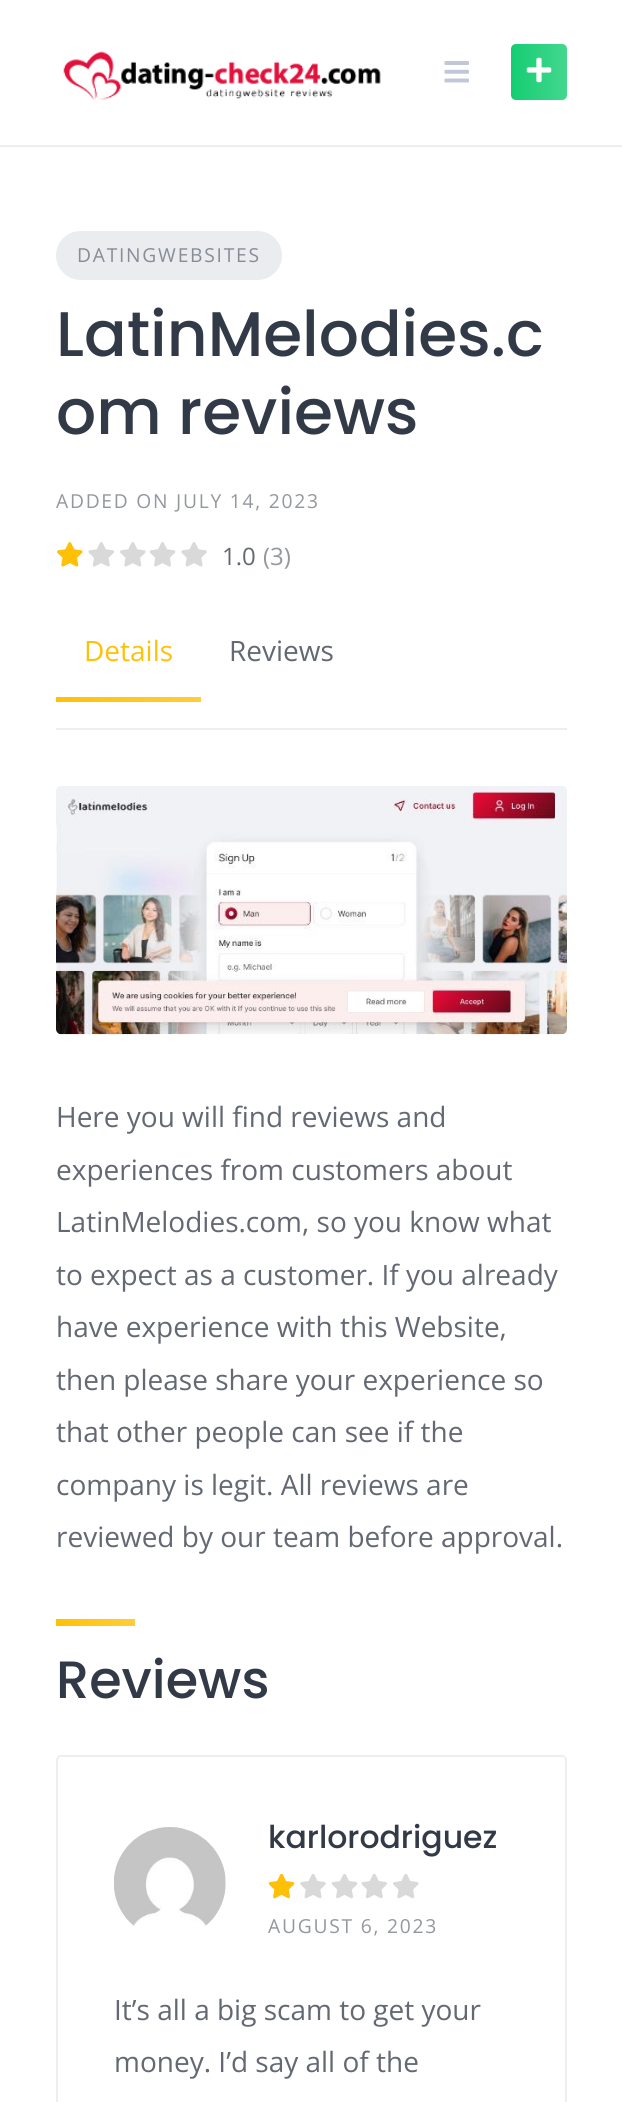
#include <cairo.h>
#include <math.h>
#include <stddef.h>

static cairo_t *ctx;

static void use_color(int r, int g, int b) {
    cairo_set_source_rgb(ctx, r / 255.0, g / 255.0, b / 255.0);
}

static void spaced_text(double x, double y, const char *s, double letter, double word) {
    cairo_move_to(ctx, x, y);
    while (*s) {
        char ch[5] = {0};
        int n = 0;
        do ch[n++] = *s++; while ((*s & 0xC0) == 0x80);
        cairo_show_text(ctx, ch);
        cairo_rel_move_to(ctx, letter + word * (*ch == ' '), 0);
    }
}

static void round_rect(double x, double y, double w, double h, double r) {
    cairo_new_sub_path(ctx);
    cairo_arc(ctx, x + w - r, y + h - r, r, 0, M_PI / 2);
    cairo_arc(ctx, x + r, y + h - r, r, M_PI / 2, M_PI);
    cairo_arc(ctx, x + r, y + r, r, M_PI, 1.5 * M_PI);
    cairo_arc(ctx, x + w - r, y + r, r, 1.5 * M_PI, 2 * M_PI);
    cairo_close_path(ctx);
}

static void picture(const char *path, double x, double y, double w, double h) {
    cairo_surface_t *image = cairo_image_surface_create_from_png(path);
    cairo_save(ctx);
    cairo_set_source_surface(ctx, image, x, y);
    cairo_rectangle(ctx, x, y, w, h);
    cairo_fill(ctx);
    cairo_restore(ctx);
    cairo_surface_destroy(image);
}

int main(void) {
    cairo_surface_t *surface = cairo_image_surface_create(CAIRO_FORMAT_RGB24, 622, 2102);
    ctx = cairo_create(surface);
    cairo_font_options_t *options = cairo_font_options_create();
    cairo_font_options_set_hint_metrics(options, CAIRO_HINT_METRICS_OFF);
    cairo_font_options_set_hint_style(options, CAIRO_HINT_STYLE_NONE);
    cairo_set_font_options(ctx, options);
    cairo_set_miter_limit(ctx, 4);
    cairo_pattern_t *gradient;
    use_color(255, 255, 255);
    cairo_paint(ctx);
    use_color(236, 239, 242);
    cairo_rectangle(ctx, 0, 145, 622, 2);
    cairo_fill(ctx);
    picture("img1.png", 63, 51, 318, 49);
    picture("img2.png", 444, 61, 25, 22);
    use_color(21, 205, 114);
    round_rect(511, 44, 56, 56, 5);
    cairo_fill(ctx);
    gradient = cairo_pattern_create_linear(511, 72, 567, 72);
    cairo_pattern_add_color_stop_rgba(gradient, 0, 1, 1, 1, 0);
    cairo_pattern_add_color_stop_rgba(gradient, 1, 1, 1, 1, 0.2);
    cairo_set_source(ctx, gradient);
    cairo_pattern_destroy(gradient);
    round_rect(511, 44, 56, 56, 5);
    cairo_fill(ctx);
    picture("img3.png", 526, 57, 26, 26);
    use_color(234, 236, 240);
    round_rect(56, 231, 226, 49, 24.5);
    cairo_fill(ctx);
    cairo_select_font_face(ctx, "Open Sans", CAIRO_FONT_SLANT_NORMAL, CAIRO_FONT_WEIGHT_NORMAL);
    cairo_set_font_size(ctx, 19.25);
    use_color(135, 140, 150);
    spaced_text(77, 262, "DATINGWEBSITES", 1.75, 0);
    cairo_select_font_face(ctx, "Poppins Medium", CAIRO_FONT_SLANT_NORMAL, CAIRO_FONT_WEIGHT_NORMAL);
    cairo_set_font_size(ctx, 63);
    use_color(51, 58, 71);
    cairo_move_to(ctx, 56, 356);
    cairo_show_text(ctx, "LatinMelodies.c");
    cairo_move_to(ctx, 56, 434);
    cairo_show_text(ctx, "om reviews");
    cairo_select_font_face(ctx, "Open Sans", CAIRO_FONT_SLANT_NORMAL, CAIRO_FONT_WEIGHT_NORMAL);
    cairo_set_font_size(ctx, 19.25);
    use_color(147, 151, 158);
    spaced_text(56, 508, "ADDED ON JULY 14, 2023", 1.75, 0);
    picture("img4.png", 57, 542, 26, 25);
    picture("img5.png", 88, 542, 26, 25);
    picture("img6.png", 120, 542, 26, 25);
    picture("img7.png", 149, 542, 27, 25);
    picture("img8.png", 181, 542, 26, 25);
    cairo_set_font_size(ctx, 24);
    use_color(99, 104, 115);
    cairo_move_to(ctx, 222, 565);
    cairo_show_text(ctx, "1.0");
    use_color(147, 151, 158);
    cairo_move_to(ctx, 263, 565);
    cairo_show_text(ctx, "(3)");
    use_color(236, 239, 242);
    cairo_rectangle(ctx, 56, 728, 511, 2);
    cairo_fill(ctx);
    cairo_set_font_size(ctx, 28);
    use_color(255, 193, 7);
    cairo_move_to(ctx, 84, 661);
    cairo_show_text(ctx, "Details");
    gradient = cairo_pattern_create_linear(56, 699, 201, 699);
    cairo_pattern_add_color_stop_rgba(gradient, 0, 1, 0.757, 0.027, 1);
    cairo_pattern_add_color_stop_rgba(gradient, 1, 1, 0.804, 0.224, 1);
    cairo_set_source(ctx, gradient);
    cairo_pattern_destroy(gradient);
    cairo_rectangle(ctx, 56, 697, 145, 5);
    cairo_fill(ctx);
    use_color(99, 104, 115);
    cairo_move_to(ctx, 229, 661);
    cairo_show_text(ctx, "Reviews");
    picture("img9.png", 56, 786, 511, 249);
    cairo_move_to(ctx, 56, 1127);
    cairo_show_text(ctx, "Here you will find reviews and");
    cairo_move_to(ctx, 56, 1180);
    cairo_show_text(ctx, "experiences from customers about");
    cairo_move_to(ctx, 56, 1232);
    cairo_show_text(ctx, "LatinMelodies.com, so you know what");
    cairo_move_to(ctx, 56, 1285);
    cairo_show_text(ctx, "to expect as a customer. If you already");
    cairo_move_to(ctx, 56, 1337);
    cairo_show_text(ctx, "have experience with this Website,");
    cairo_move_to(ctx, 56, 1390);
    cairo_show_text(ctx, "then please share your experience so");
    cairo_move_to(ctx, 56, 1442);
    cairo_show_text(ctx, "that other people can see if the");
    cairo_move_to(ctx, 56, 1495);
    cairo_show_text(ctx, "company is legit. All reviews are");
    cairo_move_to(ctx, 56, 1547);
    cairo_show_text(ctx, "reviewed by our team before approval.");
    gradient = cairo_pattern_create_linear(56, 1622, 135, 1622);
    cairo_pattern_add_color_stop_rgba(gradient, 0, 1, 0.757, 0.027, 1);
    cairo_pattern_add_color_stop_rgba(gradient, 1, 1, 0.804, 0.224, 1);
    cairo_set_source(ctx, gradient);
    cairo_pattern_destroy(gradient);
    cairo_rectangle(ctx, 56, 1619, 79, 7);
    cairo_fill(ctx);
    cairo_select_font_face(ctx, "Poppins Medium", CAIRO_FONT_SLANT_NORMAL, CAIRO_FONT_WEIGHT_NORMAL);
    cairo_set_font_size(ctx, 52.5);
    use_color(51, 58, 71);
    cairo_move_to(ctx, 56, 1698);
    cairo_show_text(ctx, "Reviews");
    round_rect(57, 1756, 509, 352, 4);
    use_color(236, 238, 242);
    cairo_stroke(ctx);
    picture("img10.png", 114, 1827, 112, 99);
    cairo_set_font_size(ctx, 31.5);
    use_color(51, 58, 71);
    cairo_move_to(ctx, 268, 1848);
    cairo_show_text(ctx, "karlorodriguez");
    picture("img11.png", 268, 1873, 27, 26);
    picture("img12.png", 300, 1874, 26, 25);
    picture("img13.png", 331, 1874, 27, 25);
    picture("img14.png", 361, 1874, 26, 25);
    picture("img15.png", 393, 1874, 26, 25);
    cairo_select_font_face(ctx, "Open Sans", CAIRO_FONT_SLANT_NORMAL, CAIRO_FONT_WEIGHT_NORMAL);
    cairo_set_font_size(ctx, 19.25);
    use_color(147, 151, 158);
    spaced_text(268, 1933, "AUGUST 6, 2023", 1.75, 0);
    cairo_set_font_size(ctx, 28);
    use_color(99, 104, 115);
    cairo_move_to(ctx, 114, 2020);
    cairo_show_text(ctx, "It’s all a big scam to get your");
    cairo_move_to(ctx, 114, 2072);
    cairo_show_text(ctx, "money. I’d say all of the");
    cairo_surface_write_to_png(surface, "result.png");
    cairo_font_options_destroy(options);
    cairo_destroy(ctx);
    cairo_surface_destroy(surface);
    return 0;
}
